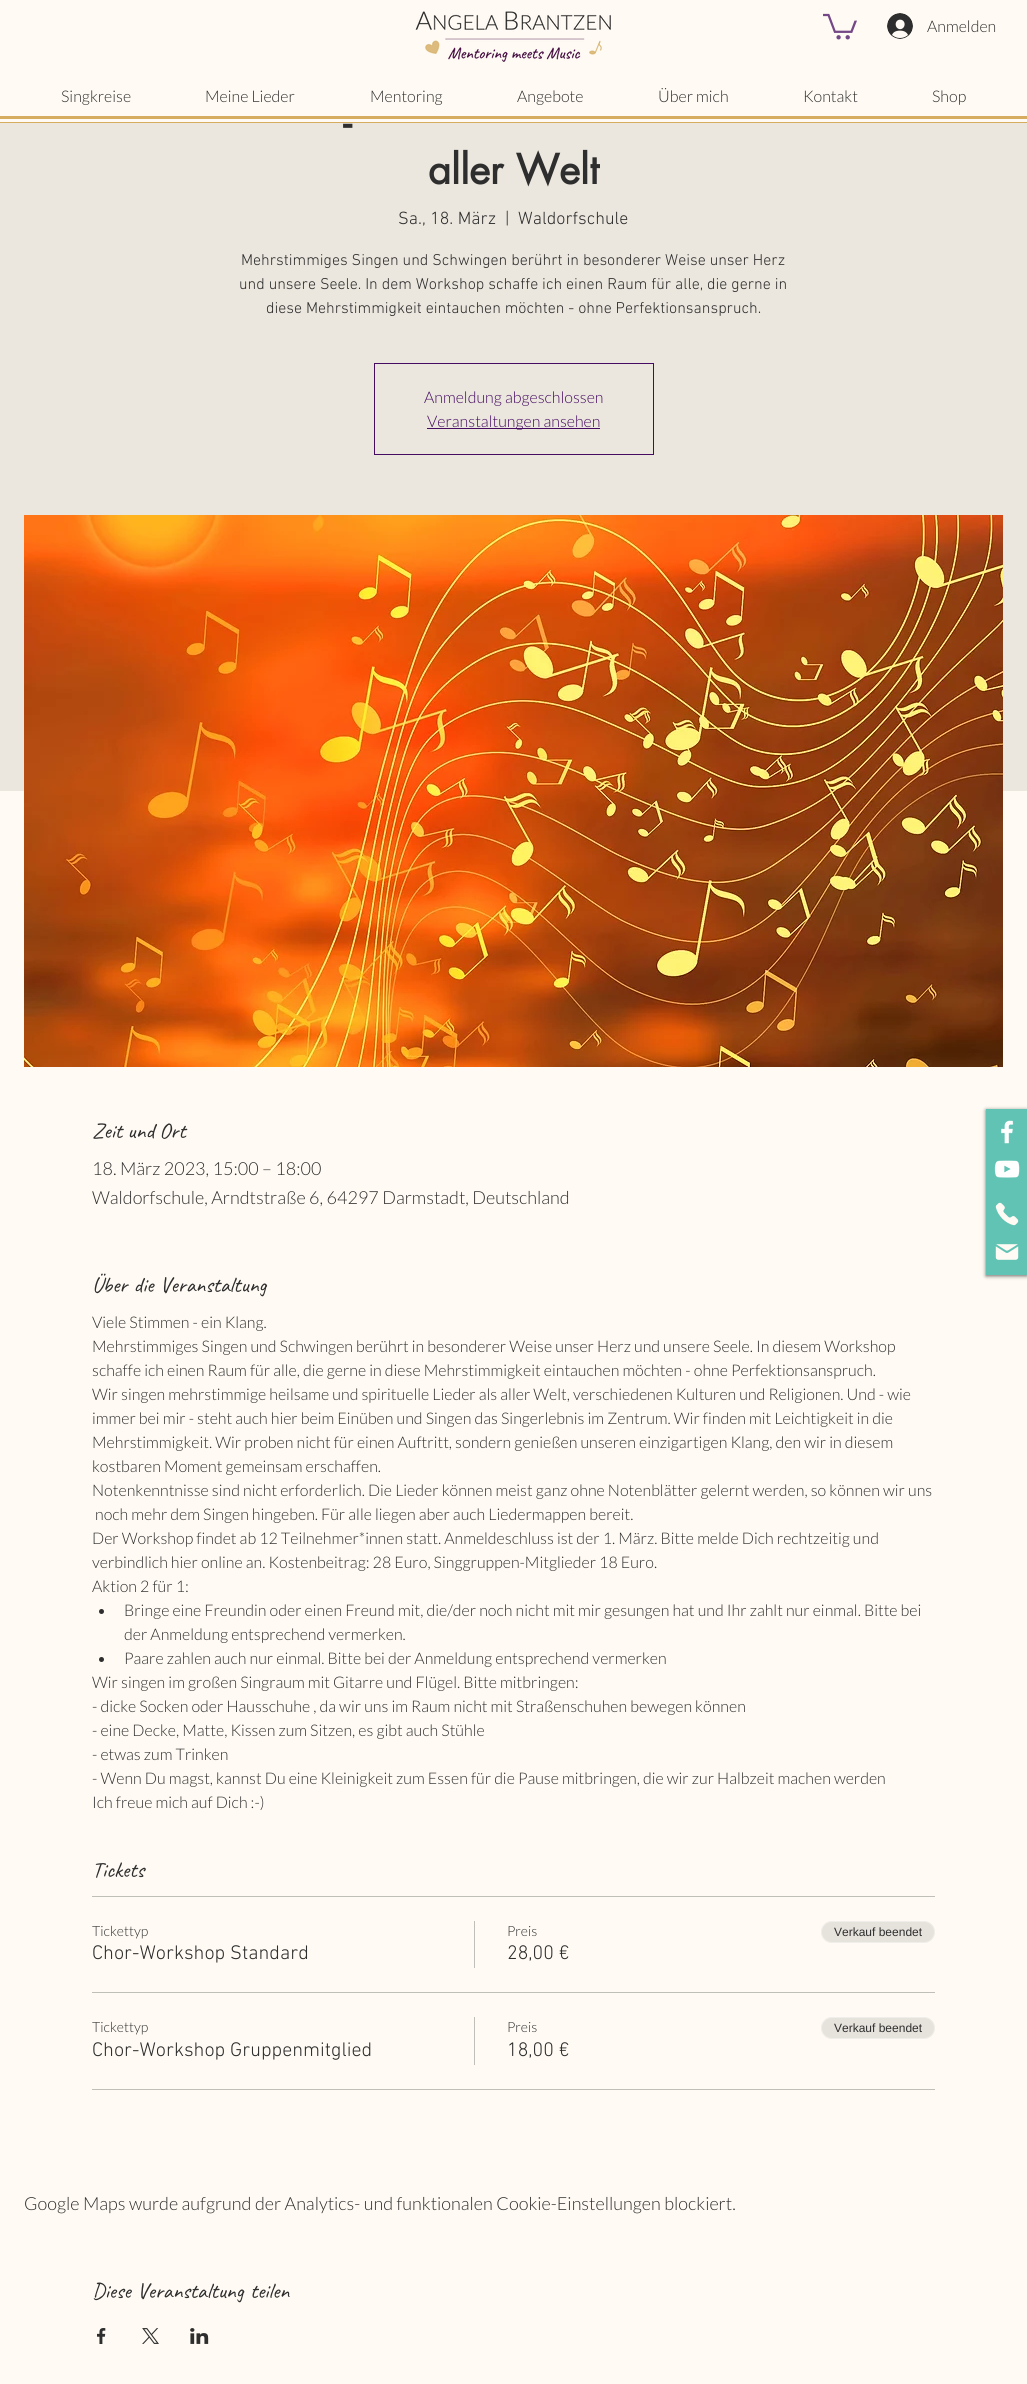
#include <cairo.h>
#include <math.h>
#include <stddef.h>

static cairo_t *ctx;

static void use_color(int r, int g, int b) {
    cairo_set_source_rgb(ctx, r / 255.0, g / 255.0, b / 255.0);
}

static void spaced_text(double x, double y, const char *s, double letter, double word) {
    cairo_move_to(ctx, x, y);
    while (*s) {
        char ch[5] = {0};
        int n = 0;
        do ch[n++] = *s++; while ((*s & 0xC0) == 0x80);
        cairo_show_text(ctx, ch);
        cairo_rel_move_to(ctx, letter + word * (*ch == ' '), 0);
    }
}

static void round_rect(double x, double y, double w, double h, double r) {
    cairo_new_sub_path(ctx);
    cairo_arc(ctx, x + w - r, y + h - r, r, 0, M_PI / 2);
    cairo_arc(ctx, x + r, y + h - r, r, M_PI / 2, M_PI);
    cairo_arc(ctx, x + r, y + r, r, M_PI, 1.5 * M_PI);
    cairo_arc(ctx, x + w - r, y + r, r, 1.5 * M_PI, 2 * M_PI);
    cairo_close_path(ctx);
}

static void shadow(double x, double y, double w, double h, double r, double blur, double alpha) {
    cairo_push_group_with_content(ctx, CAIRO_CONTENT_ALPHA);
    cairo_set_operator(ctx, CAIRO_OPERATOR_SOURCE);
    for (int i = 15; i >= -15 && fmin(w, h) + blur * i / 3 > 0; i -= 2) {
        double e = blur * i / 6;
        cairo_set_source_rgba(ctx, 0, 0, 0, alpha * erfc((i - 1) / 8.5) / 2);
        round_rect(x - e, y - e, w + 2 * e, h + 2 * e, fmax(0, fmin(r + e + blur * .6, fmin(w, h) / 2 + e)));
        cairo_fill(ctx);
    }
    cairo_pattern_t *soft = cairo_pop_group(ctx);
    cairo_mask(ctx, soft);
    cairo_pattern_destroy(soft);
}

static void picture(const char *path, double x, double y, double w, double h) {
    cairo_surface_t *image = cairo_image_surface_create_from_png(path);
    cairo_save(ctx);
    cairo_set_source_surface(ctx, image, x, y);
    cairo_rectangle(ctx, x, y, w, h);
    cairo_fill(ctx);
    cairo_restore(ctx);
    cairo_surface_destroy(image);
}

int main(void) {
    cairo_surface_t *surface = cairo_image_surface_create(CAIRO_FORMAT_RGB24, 1027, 2384);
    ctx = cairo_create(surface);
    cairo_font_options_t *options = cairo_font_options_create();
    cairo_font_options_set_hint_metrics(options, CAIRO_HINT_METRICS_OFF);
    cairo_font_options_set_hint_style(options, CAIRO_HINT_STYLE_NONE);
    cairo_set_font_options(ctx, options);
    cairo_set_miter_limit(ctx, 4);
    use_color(255, 251, 244);
    cairo_paint(ctx);
    picture("img1.png", 415, 11, 196, 51);
    picture("img2.png", 823, 13, 34, 27);
    picture("img3.png", 887, 13, 26, 26);
    cairo_select_font_face(ctx, "Lato Light", CAIRO_FONT_SLANT_NORMAL, CAIRO_FONT_WEIGHT_NORMAL);
    cairo_set_font_size(ctx, 16);
    use_color(46, 46, 46);
    cairo_move_to(ctx, 927, 32);
    cairo_show_text(ctx, "Anmelden");
    cairo_move_to(ctx, 61, 102);
    cairo_show_text(ctx, "Singkreise");
    cairo_move_to(ctx, 205, 102);
    cairo_show_text(ctx, "Meine Lieder");
    cairo_move_to(ctx, 370, 102);
    cairo_show_text(ctx, "Mentoring");
    cairo_move_to(ctx, 517, 102);
    cairo_show_text(ctx, "Angebote");
    cairo_move_to(ctx, 658, 102);
    cairo_show_text(ctx, "Über mich");
    cairo_move_to(ctx, 803, 102);
    cairo_show_text(ctx, "Kontakt");
    cairo_move_to(ctx, 932, 102);
    cairo_show_text(ctx, "Shop");
    use_color(214, 173, 96);
    cairo_rectangle(ctx, 0, 116, 1027, 3);
    cairo_fill(ctx);
    cairo_rectangle(ctx, 0, 122, 1027, 1);
    cairo_fill(ctx);
    use_color(235, 231, 222);
    cairo_rectangle(ctx, 0, 123, 1027, 668);
    cairo_fill(ctx);
    cairo_select_font_face(ctx, "futura", CAIRO_FONT_SLANT_NORMAL, CAIRO_FONT_WEIGHT_BOLD);
    cairo_set_font_size(ctx, 40);
    use_color(46, 46, 46);
    cairo_move_to(ctx, 343, 136);
    cairo_show_text(ctx, "-");
    cairo_move_to(ctx, 428, 184);
    cairo_show_text(ctx, "aller Welt");
    cairo_select_font_face(ctx, "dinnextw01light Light", CAIRO_FONT_SLANT_NORMAL, CAIRO_FONT_WEIGHT_NORMAL);
    cairo_set_font_size(ctx, 18);
    cairo_move_to(ctx, 398, 224);
    cairo_show_text(ctx, "Sa., 18. März");
    cairo_move_to(ctx, 505, 224);
    cairo_show_text(ctx, "|");
    cairo_move_to(ctx, 518, 224);
    cairo_show_text(ctx, "Waldorfschule");
    cairo_set_font_size(ctx, 16);
    cairo_move_to(ctx, 241, 265);
    cairo_show_text(ctx, "Mehrstimmiges Singen und Schwingen berührt in besonderer Weise unser Herz");
    cairo_move_to(ctx, 239, 289);
    cairo_show_text(ctx, "und unsere Seele. In dem Workshop schaffe ich einen Raum für alle, die gerne in");
    cairo_move_to(ctx, 266, 313);
    cairo_show_text(ctx, "diese Mehrstimmigkeit eintauchen möchten - ohne Perfektionsanspruch.");
    cairo_rectangle(ctx, 374.5, 363.5, 279, 91);
    use_color(70, 12, 97);
    cairo_set_line_width(ctx, 1);
    cairo_stroke(ctx);
    cairo_select_font_face(ctx, "Lato Light", CAIRO_FONT_SLANT_NORMAL, CAIRO_FONT_WEIGHT_NORMAL);
    cairo_move_to(ctx, 424, 403);
    cairo_show_text(ctx, "Anmeldung abgeschlossen");
    cairo_rectangle(ctx, 427, 428, 173, 1);
    cairo_fill(ctx);
    cairo_move_to(ctx, 427, 427);
    cairo_show_text(ctx, "Veranstaltungen ansehen");
    picture("img4.png", 24, 515, 979, 552);
    cairo_select_font_face(ctx, "Caveat", CAIRO_FONT_SLANT_NORMAL, CAIRO_FONT_WEIGHT_NORMAL);
    cairo_set_font_size(ctx, 22);
    use_color(46, 46, 46);
    cairo_move_to(ctx, 92, 1138);
    cairo_show_text(ctx, "Zeit und Ort");
    cairo_select_font_face(ctx, "Lato Light", CAIRO_FONT_SLANT_NORMAL, CAIRO_FONT_WEIGHT_NORMAL);
    cairo_set_font_size(ctx, 18);
    cairo_move_to(ctx, 92, 1175);
    cairo_show_text(ctx, "18. März 2023, 15:00 – 18:00");
    cairo_move_to(ctx, 92, 1204);
    cairo_show_text(ctx, "Waldorfschule, Arndtstraße 6, 64297 Darmstadt, Deutschland");
    cairo_select_font_face(ctx, "Caveat", CAIRO_FONT_SLANT_NORMAL, CAIRO_FONT_WEIGHT_NORMAL);
    cairo_set_font_size(ctx, 22);
    spaced_text(92, 1292, "Über die Veranstaltung", 0, 1);
    cairo_select_font_face(ctx, "Lato Light", CAIRO_FONT_SLANT_NORMAL, CAIRO_FONT_WEIGHT_NORMAL);
    cairo_set_font_size(ctx, 16);
    cairo_move_to(ctx, 92, 1328);
    cairo_show_text(ctx, "Viele Stimmen - ein Klang.");
    cairo_move_to(ctx, 92, 1352);
    cairo_show_text(ctx, "Mehrstimmiges Singen und Schwingen berührt in besonderer Weise unser Herz und unsere Seele. In diesem Workshop");
    cairo_move_to(ctx, 92, 1376);
    cairo_show_text(ctx, "schaffe ich einen Raum für alle, die gerne in diese Mehrstimmigkeit eintauchen möchten - ohne Perfektionsanspruch.");
    cairo_move_to(ctx, 92, 1400);
    cairo_show_text(ctx, "Wir singen mehrstimmige heilsame und spirituelle Lieder als aller Welt, verschiedenen Kulturen und Religionen. Und - wie");
    cairo_move_to(ctx, 92, 1424);
    cairo_show_text(ctx, "immer bei mir - steht auch hier beim Einüben und Singen das Singerlebnis im Zentrum. Wir finden mit Leichtigkeit in die");
    cairo_move_to(ctx, 92, 1448);
    cairo_show_text(ctx, "Mehrstimmigkeit. Wir proben nicht für einen Auftritt, sondern genießen unseren einzigartigen Klang, den wir in diesem");
    cairo_move_to(ctx, 92, 1472);
    cairo_show_text(ctx, "kostbaren Moment gemeinsam erschaffen.");
    cairo_move_to(ctx, 92, 1496);
    cairo_show_text(ctx, "Notenkenntnisse sind nicht erforderlich. Die Lieder können meist ganz ohne Notenblätter gelernt werden, so können wir uns");
    cairo_move_to(ctx, 95, 1520);
    cairo_show_text(ctx, "noch mehr dem Singen hingeben. Für alle liegen aber auch Liedermappen bereit.");
    cairo_move_to(ctx, 92, 1544);
    cairo_show_text(ctx, "Der Workshop findet ab 12 Teilnehmer*innen statt. Anmeldeschluss ist der 1. März. Bitte melde Dich rechtzeitig und");
    cairo_move_to(ctx, 92, 1568);
    cairo_show_text(ctx, "verbindlich hier online an. Kostenbeitrag: 28 Euro, Singgruppen-Mitglieder 18 Euro.");
    cairo_move_to(ctx, 92, 1592);
    cairo_show_text(ctx, "Aktion 2 für 1:");
    cairo_new_path(ctx);
    cairo_arc(ctx, 101.5, 1611.5, 2.5, 0, 2 * M_PI);
    cairo_fill(ctx);
    cairo_move_to(ctx, 124, 1616);
    cairo_show_text(ctx, "Bringe eine Freundin oder einen Freund mit, die/der noch nicht mit mir gesungen hat und Ihr zahlt nur einmal. Bitte bei");
    cairo_move_to(ctx, 124, 1640);
    cairo_show_text(ctx, "der Anmeldung entsprechend vermerken.");
    cairo_new_path(ctx);
    cairo_arc(ctx, 101.5, 1659.5, 2.5, 0, 2 * M_PI);
    cairo_fill(ctx);
    cairo_move_to(ctx, 124, 1664);
    cairo_show_text(ctx, "Paare zahlen auch nur einmal. Bitte bei der Anmeldung entsprechend vermerken");
    cairo_move_to(ctx, 92, 1688);
    cairo_show_text(ctx, "Wir singen im großen Singraum mit Gitarre und Flügel. Bitte mitbringen:");
    cairo_move_to(ctx, 92, 1712);
    cairo_show_text(ctx, "- dicke Socken oder Hausschuhe , da wir uns im Raum nicht mit Straßenschuhen bewegen können");
    cairo_move_to(ctx, 92, 1736);
    cairo_show_text(ctx, "- eine Decke, Matte, Kissen zum Sitzen, es gibt auch Stühle");
    cairo_move_to(ctx, 92, 1760);
    cairo_show_text(ctx, "- etwas zum Trinken");
    cairo_move_to(ctx, 92, 1784);
    cairo_show_text(ctx, "- Wenn Du magst, kannst Du eine Kleinigkeit zum Essen für die Pause mitbringen, die wir zur Halbzeit machen werden");
    cairo_move_to(ctx, 92, 1808);
    cairo_show_text(ctx, "Ich freue mich auf Dich :-)");
    cairo_select_font_face(ctx, "Caveat", CAIRO_FONT_SLANT_NORMAL, CAIRO_FONT_WEIGHT_NORMAL);
    cairo_set_font_size(ctx, 22);
    cairo_move_to(ctx, 92, 1877);
    cairo_show_text(ctx, "Tickets");
    use_color(192, 190, 185);
    cairo_rectangle(ctx, 92, 1896, 843, 1);
    cairo_fill(ctx);
    cairo_rectangle(ctx, 92, 1992, 843, 1);
    cairo_fill(ctx);
    cairo_select_font_face(ctx, "Lato Light", CAIRO_FONT_SLANT_NORMAL, CAIRO_FONT_WEIGHT_NORMAL);
    cairo_set_font_size(ctx, 14);
    use_color(46, 46, 46);
    cairo_move_to(ctx, 92, 1936);
    cairo_show_text(ctx, "Tickettyp");
    cairo_select_font_face(ctx, "dinnextw01light Light", CAIRO_FONT_SLANT_NORMAL, CAIRO_FONT_WEIGHT_NORMAL);
    cairo_set_font_size(ctx, 20);
    cairo_move_to(ctx, 92, 1959);
    cairo_show_text(ctx, "Chor-Workshop Standard");
    use_color(192, 190, 185);
    cairo_rectangle(ctx, 474, 1921, 1, 47);
    cairo_fill(ctx);
    cairo_select_font_face(ctx, "Lato Light", CAIRO_FONT_SLANT_NORMAL, CAIRO_FONT_WEIGHT_NORMAL);
    cairo_set_font_size(ctx, 14);
    use_color(46, 46, 46);
    cairo_move_to(ctx, 507, 1936);
    cairo_show_text(ctx, "Preis");
    cairo_select_font_face(ctx, "dinnextw01light Light", CAIRO_FONT_SLANT_NORMAL, CAIRO_FONT_WEIGHT_NORMAL);
    cairo_set_font_size(ctx, 20);
    cairo_move_to(ctx, 507, 1959);
    cairo_show_text(ctx, "28,00 €");
    use_color(230, 226, 220);
    round_rect(821, 1921, 114, 22, 11);
    cairo_fill(ctx);
    round_rect(821.5, 1921.5, 113, 21, 10.5);
    cairo_set_source_rgba(ctx, 1, 1, 1, 0.4);
    cairo_stroke(ctx);
    cairo_select_font_face(ctx, "Liberation Sans", CAIRO_FONT_SLANT_NORMAL, CAIRO_FONT_WEIGHT_NORMAL);
    cairo_set_font_size(ctx, 12);
    use_color(46, 46, 46);
    cairo_move_to(ctx, 834, 1936);
    cairo_show_text(ctx, "Verkauf beendet");
    use_color(192, 190, 185);
    cairo_rectangle(ctx, 92, 2089, 843, 1);
    cairo_fill(ctx);
    cairo_select_font_face(ctx, "Lato Light", CAIRO_FONT_SLANT_NORMAL, CAIRO_FONT_WEIGHT_NORMAL);
    cairo_set_font_size(ctx, 14);
    use_color(46, 46, 46);
    cairo_move_to(ctx, 92, 2032);
    cairo_show_text(ctx, "Tickettyp");
    cairo_select_font_face(ctx, "dinnextw01light Light", CAIRO_FONT_SLANT_NORMAL, CAIRO_FONT_WEIGHT_NORMAL);
    cairo_set_font_size(ctx, 20);
    cairo_move_to(ctx, 92, 2056);
    cairo_show_text(ctx, "Chor-Workshop Gruppenmitglied");
    use_color(192, 190, 185);
    cairo_rectangle(ctx, 474, 2017, 1, 48);
    cairo_fill(ctx);
    cairo_select_font_face(ctx, "Lato Light", CAIRO_FONT_SLANT_NORMAL, CAIRO_FONT_WEIGHT_NORMAL);
    cairo_set_font_size(ctx, 14);
    use_color(46, 46, 46);
    cairo_move_to(ctx, 507, 2032);
    cairo_show_text(ctx, "Preis");
    cairo_select_font_face(ctx, "dinnextw01light Light", CAIRO_FONT_SLANT_NORMAL, CAIRO_FONT_WEIGHT_NORMAL);
    cairo_set_font_size(ctx, 20);
    cairo_move_to(ctx, 507, 2056);
    cairo_show_text(ctx, "18,00 €");
    use_color(230, 226, 220);
    round_rect(821, 2017, 114, 22, 11);
    cairo_fill(ctx);
    round_rect(821.5, 2017.5, 113, 21, 10.5);
    cairo_set_source_rgba(ctx, 1, 1, 1, 0.4);
    cairo_stroke(ctx);
    cairo_select_font_face(ctx, "Liberation Sans", CAIRO_FONT_SLANT_NORMAL, CAIRO_FONT_WEIGHT_NORMAL);
    cairo_set_font_size(ctx, 12);
    use_color(46, 46, 46);
    cairo_move_to(ctx, 834, 2032);
    cairo_show_text(ctx, "Verkauf beendet");
    cairo_select_font_face(ctx, "Lato Light", CAIRO_FONT_SLANT_NORMAL, CAIRO_FONT_WEIGHT_NORMAL);
    cairo_set_font_size(ctx, 18);
    cairo_move_to(ctx, 24, 2210);
    cairo_show_text(ctx, "Google Maps wurde aufgrund der Analytics- und funktionalen Cookie-Einstellungen blockiert.");
    cairo_select_font_face(ctx, "Caveat", CAIRO_FONT_SLANT_NORMAL, CAIRO_FONT_WEIGHT_NORMAL);
    cairo_set_font_size(ctx, 22);
    spaced_text(92, 2298, "Diese Veranstaltung teilen", 0, 1);
    picture("img5.png", 97, 2328, 9, 16);
    picture("img6.png", 142, 2328, 17, 16);
    picture("img7.png", 190, 2328, 19, 16);
    use_color(0, 0, 0);
    shadow(986, 1110, 41, 166, 0, 2, 0.6);
    use_color(97, 195, 180);
    cairo_rectangle(ctx, 986, 1109, 41, 166);
    cairo_fill(ctx);
    picture("img8.png", 1001, 1120, 13, 24);
    picture("img9.png", 994, 1160, 26, 18);
    picture("img10.png", 995, 1202, 24, 24);
    picture("img11.png", 995, 1244, 24, 16);
    cairo_surface_write_to_png(surface, "result.png");
    cairo_font_options_destroy(options);
    cairo_destroy(ctx);
    cairo_surface_destroy(surface);
    return 0;
}
